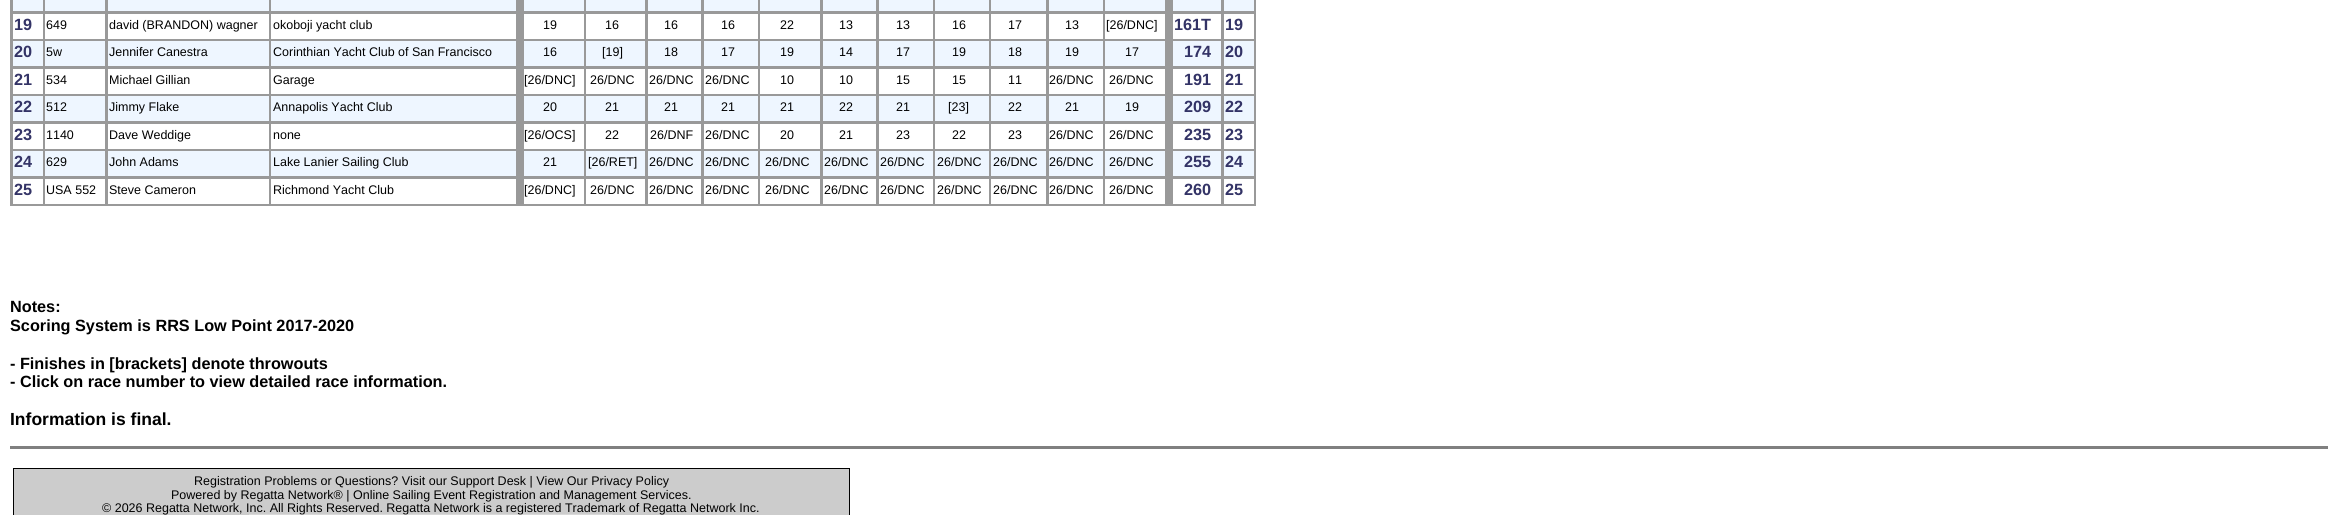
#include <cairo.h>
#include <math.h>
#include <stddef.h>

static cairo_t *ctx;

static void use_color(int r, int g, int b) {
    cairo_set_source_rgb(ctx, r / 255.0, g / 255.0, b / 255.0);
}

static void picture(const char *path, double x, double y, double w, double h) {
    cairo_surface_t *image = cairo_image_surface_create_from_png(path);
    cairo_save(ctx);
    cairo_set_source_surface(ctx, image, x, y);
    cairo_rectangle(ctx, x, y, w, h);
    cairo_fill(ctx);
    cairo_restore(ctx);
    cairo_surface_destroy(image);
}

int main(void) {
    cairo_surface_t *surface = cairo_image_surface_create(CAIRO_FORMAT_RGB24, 2334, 515);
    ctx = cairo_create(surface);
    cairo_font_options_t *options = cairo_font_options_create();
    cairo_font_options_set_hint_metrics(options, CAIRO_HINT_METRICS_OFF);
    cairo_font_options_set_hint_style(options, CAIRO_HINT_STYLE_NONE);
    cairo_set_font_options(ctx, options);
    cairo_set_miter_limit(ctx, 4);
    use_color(255, 255, 255);
    cairo_paint(ctx);
    use_color(153, 153, 153);
    cairo_rectangle(ctx, 10, 0, 1246, 206);
    cairo_fill(ctx);
    use_color(238, 246, 255);
    cairo_rectangle(ctx, 13, 0, 30, 11);
    cairo_fill(ctx);
    cairo_rectangle(ctx, 45, 0, 60, 11);
    cairo_fill(ctx);
    cairo_rectangle(ctx, 108, 0, 161, 11);
    cairo_fill(ctx);
    cairo_rectangle(ctx, 271, 0, 245, 11);
    cairo_fill(ctx);
    cairo_rectangle(ctx, 524, 0, 60, 11);
    cairo_fill(ctx);
    cairo_rectangle(ctx, 586, 0, 59, 11);
    cairo_fill(ctx);
    cairo_rectangle(ctx, 648, 0, 53, 11);
    cairo_fill(ctx);
    cairo_rectangle(ctx, 704, 0, 54, 11);
    cairo_fill(ctx);
    cairo_rectangle(ctx, 760, 0, 60, 11);
    cairo_fill(ctx);
    cairo_rectangle(ctx, 823, 0, 53, 11);
    cairo_fill(ctx);
    cairo_rectangle(ctx, 879, 0, 54, 11);
    cairo_fill(ctx);
    cairo_rectangle(ctx, 935, 0, 54, 11);
    cairo_fill(ctx);
    cairo_rectangle(ctx, 991, 0, 55, 11);
    cairo_fill(ctx);
    cairo_rectangle(ctx, 1049, 0, 54, 11);
    cairo_fill(ctx);
    cairo_rectangle(ctx, 1105, 0, 60, 11);
    cairo_fill(ctx);
    cairo_rectangle(ctx, 1173, 0, 48, 11);
    cairo_fill(ctx);
    cairo_rectangle(ctx, 1224, 0, 30, 11);
    cairo_fill(ctx);
    use_color(255, 255, 255);
    cairo_rectangle(ctx, 13, 14, 30, 25);
    cairo_fill(ctx);
    cairo_select_font_face(ctx, "Liberation Sans", CAIRO_FONT_SLANT_NORMAL, CAIRO_FONT_WEIGHT_BOLD);
    cairo_set_font_size(ctx, 16.25);
    use_color(51, 51, 102);
    cairo_move_to(ctx, 14, 30);
    cairo_show_text(ctx, "19");
    use_color(255, 255, 255);
    cairo_rectangle(ctx, 45, 14, 60, 25);
    cairo_fill(ctx);
    cairo_select_font_face(ctx, "Liberation Sans", CAIRO_FONT_SLANT_NORMAL, CAIRO_FONT_WEIGHT_NORMAL);
    cairo_set_font_size(ctx, 12.5);
    use_color(0, 0, 0);
    cairo_move_to(ctx, 46, 29);
    cairo_show_text(ctx, "649");
    use_color(255, 255, 255);
    cairo_rectangle(ctx, 108, 14, 161, 25);
    cairo_fill(ctx);
    use_color(0, 0, 0);
    cairo_move_to(ctx, 109, 29);
    cairo_show_text(ctx, "david (BRANDON) wagner");
    use_color(255, 255, 255);
    cairo_rectangle(ctx, 271, 14, 245, 25);
    cairo_fill(ctx);
    use_color(0, 0, 0);
    cairo_move_to(ctx, 273, 29);
    cairo_show_text(ctx, "okoboji yacht club");
    use_color(255, 255, 255);
    cairo_rectangle(ctx, 524, 14, 60, 25);
    cairo_fill(ctx);
    use_color(0, 0, 0);
    cairo_move_to(ctx, 543, 29);
    cairo_show_text(ctx, "19");
    use_color(255, 255, 255);
    cairo_rectangle(ctx, 586, 14, 59, 25);
    cairo_fill(ctx);
    use_color(0, 0, 0);
    cairo_move_to(ctx, 605, 29);
    cairo_show_text(ctx, "16");
    use_color(255, 255, 255);
    cairo_rectangle(ctx, 648, 14, 53, 25);
    cairo_fill(ctx);
    use_color(0, 0, 0);
    cairo_move_to(ctx, 664, 29);
    cairo_show_text(ctx, "16");
    use_color(255, 255, 255);
    cairo_rectangle(ctx, 704, 14, 54, 25);
    cairo_fill(ctx);
    use_color(0, 0, 0);
    cairo_move_to(ctx, 721, 29);
    cairo_show_text(ctx, "16");
    use_color(255, 255, 255);
    cairo_rectangle(ctx, 760, 14, 60, 25);
    cairo_fill(ctx);
    use_color(0, 0, 0);
    cairo_move_to(ctx, 780, 29);
    cairo_show_text(ctx, "22");
    use_color(255, 255, 255);
    cairo_rectangle(ctx, 823, 14, 53, 25);
    cairo_fill(ctx);
    use_color(0, 0, 0);
    cairo_move_to(ctx, 839, 29);
    cairo_show_text(ctx, "13");
    use_color(255, 255, 255);
    cairo_rectangle(ctx, 879, 14, 54, 25);
    cairo_fill(ctx);
    use_color(0, 0, 0);
    cairo_move_to(ctx, 896, 29);
    cairo_show_text(ctx, "13");
    use_color(255, 255, 255);
    cairo_rectangle(ctx, 935, 14, 54, 25);
    cairo_fill(ctx);
    use_color(0, 0, 0);
    cairo_move_to(ctx, 952, 29);
    cairo_show_text(ctx, "16");
    use_color(255, 255, 255);
    cairo_rectangle(ctx, 991, 14, 55, 25);
    cairo_fill(ctx);
    use_color(0, 0, 0);
    cairo_move_to(ctx, 1008, 29);
    cairo_show_text(ctx, "17");
    use_color(255, 255, 255);
    cairo_rectangle(ctx, 1049, 14, 54, 25);
    cairo_fill(ctx);
    use_color(0, 0, 0);
    cairo_move_to(ctx, 1065, 29);
    cairo_show_text(ctx, "13");
    use_color(255, 255, 255);
    cairo_rectangle(ctx, 1105, 14, 60, 25);
    cairo_fill(ctx);
    use_color(0, 0, 0);
    cairo_move_to(ctx, 1106, 29);
    cairo_show_text(ctx, "[26/DNC]");
    use_color(255, 255, 255);
    cairo_rectangle(ctx, 1173, 14, 48, 25);
    cairo_fill(ctx);
    cairo_select_font_face(ctx, "Liberation Sans", CAIRO_FONT_SLANT_NORMAL, CAIRO_FONT_WEIGHT_BOLD);
    cairo_set_font_size(ctx, 16.25);
    use_color(51, 51, 102);
    cairo_move_to(ctx, 1174, 30);
    cairo_show_text(ctx, "161T");
    use_color(255, 255, 255);
    cairo_rectangle(ctx, 1224, 14, 30, 25);
    cairo_fill(ctx);
    use_color(51, 51, 102);
    cairo_move_to(ctx, 1225, 30);
    cairo_show_text(ctx, "19");
    use_color(238, 246, 255);
    cairo_rectangle(ctx, 13, 41, 30, 25);
    cairo_fill(ctx);
    use_color(51, 51, 102);
    cairo_move_to(ctx, 14, 57);
    cairo_show_text(ctx, "20");
    use_color(238, 246, 255);
    cairo_rectangle(ctx, 45, 41, 60, 25);
    cairo_fill(ctx);
    cairo_select_font_face(ctx, "Liberation Sans", CAIRO_FONT_SLANT_NORMAL, CAIRO_FONT_WEIGHT_NORMAL);
    cairo_set_font_size(ctx, 12.5);
    use_color(0, 0, 0);
    cairo_move_to(ctx, 46, 56);
    cairo_show_text(ctx, "5w");
    use_color(238, 246, 255);
    cairo_rectangle(ctx, 108, 41, 161, 25);
    cairo_fill(ctx);
    use_color(0, 0, 0);
    cairo_move_to(ctx, 109, 56);
    cairo_show_text(ctx, "Jennifer Canestra");
    use_color(238, 246, 255);
    cairo_rectangle(ctx, 271, 41, 245, 25);
    cairo_fill(ctx);
    use_color(0, 0, 0);
    cairo_move_to(ctx, 273, 56);
    cairo_show_text(ctx, "Corinthian Yacht Club of San Francisco");
    use_color(238, 246, 255);
    cairo_rectangle(ctx, 524, 41, 60, 25);
    cairo_fill(ctx);
    use_color(0, 0, 0);
    cairo_move_to(ctx, 543, 56);
    cairo_show_text(ctx, "16");
    use_color(238, 246, 255);
    cairo_rectangle(ctx, 586, 41, 59, 25);
    cairo_fill(ctx);
    use_color(0, 0, 0);
    cairo_move_to(ctx, 602, 56);
    cairo_show_text(ctx, "[19]");
    use_color(238, 246, 255);
    cairo_rectangle(ctx, 648, 41, 53, 25);
    cairo_fill(ctx);
    use_color(0, 0, 0);
    cairo_move_to(ctx, 664, 56);
    cairo_show_text(ctx, "18");
    use_color(238, 246, 255);
    cairo_rectangle(ctx, 704, 41, 54, 25);
    cairo_fill(ctx);
    use_color(0, 0, 0);
    cairo_move_to(ctx, 721, 56);
    cairo_show_text(ctx, "17");
    use_color(238, 246, 255);
    cairo_rectangle(ctx, 760, 41, 60, 25);
    cairo_fill(ctx);
    use_color(0, 0, 0);
    cairo_move_to(ctx, 780, 56);
    cairo_show_text(ctx, "19");
    use_color(238, 246, 255);
    cairo_rectangle(ctx, 823, 41, 53, 25);
    cairo_fill(ctx);
    use_color(0, 0, 0);
    cairo_move_to(ctx, 839, 56);
    cairo_show_text(ctx, "14");
    use_color(238, 246, 255);
    cairo_rectangle(ctx, 879, 41, 54, 25);
    cairo_fill(ctx);
    use_color(0, 0, 0);
    cairo_move_to(ctx, 896, 56);
    cairo_show_text(ctx, "17");
    use_color(238, 246, 255);
    cairo_rectangle(ctx, 935, 41, 54, 25);
    cairo_fill(ctx);
    use_color(0, 0, 0);
    cairo_move_to(ctx, 952, 56);
    cairo_show_text(ctx, "19");
    use_color(238, 246, 255);
    cairo_rectangle(ctx, 991, 41, 55, 25);
    cairo_fill(ctx);
    use_color(0, 0, 0);
    cairo_move_to(ctx, 1008, 56);
    cairo_show_text(ctx, "18");
    use_color(238, 246, 255);
    cairo_rectangle(ctx, 1049, 41, 54, 25);
    cairo_fill(ctx);
    use_color(0, 0, 0);
    cairo_move_to(ctx, 1065, 56);
    cairo_show_text(ctx, "19");
    use_color(238, 246, 255);
    cairo_rectangle(ctx, 1105, 41, 60, 25);
    cairo_fill(ctx);
    use_color(0, 0, 0);
    cairo_move_to(ctx, 1125, 56);
    cairo_show_text(ctx, "17");
    use_color(238, 246, 255);
    cairo_rectangle(ctx, 1173, 41, 48, 25);
    cairo_fill(ctx);
    cairo_select_font_face(ctx, "Liberation Sans", CAIRO_FONT_SLANT_NORMAL, CAIRO_FONT_WEIGHT_BOLD);
    cairo_set_font_size(ctx, 16.25);
    use_color(51, 51, 102);
    cairo_move_to(ctx, 1184, 57);
    cairo_show_text(ctx, "174");
    use_color(238, 246, 255);
    cairo_rectangle(ctx, 1224, 41, 30, 25);
    cairo_fill(ctx);
    use_color(51, 51, 102);
    cairo_move_to(ctx, 1225, 57);
    cairo_show_text(ctx, "20");
    use_color(255, 255, 255);
    cairo_rectangle(ctx, 13, 69, 30, 25);
    cairo_fill(ctx);
    use_color(51, 51, 102);
    cairo_move_to(ctx, 14, 85);
    cairo_show_text(ctx, "21");
    use_color(255, 255, 255);
    cairo_rectangle(ctx, 45, 69, 60, 25);
    cairo_fill(ctx);
    cairo_select_font_face(ctx, "Liberation Sans", CAIRO_FONT_SLANT_NORMAL, CAIRO_FONT_WEIGHT_NORMAL);
    cairo_set_font_size(ctx, 12.5);
    use_color(0, 0, 0);
    cairo_move_to(ctx, 46, 84);
    cairo_show_text(ctx, "534");
    use_color(255, 255, 255);
    cairo_rectangle(ctx, 108, 69, 161, 25);
    cairo_fill(ctx);
    use_color(0, 0, 0);
    cairo_move_to(ctx, 109, 84);
    cairo_show_text(ctx, "Michael Gillian");
    use_color(255, 255, 255);
    cairo_rectangle(ctx, 271, 69, 245, 25);
    cairo_fill(ctx);
    use_color(0, 0, 0);
    cairo_move_to(ctx, 273, 84);
    cairo_show_text(ctx, "Garage");
    use_color(255, 255, 255);
    cairo_rectangle(ctx, 524, 69, 60, 25);
    cairo_fill(ctx);
    use_color(0, 0, 0);
    cairo_move_to(ctx, 524, 84);
    cairo_show_text(ctx, "[26/DNC]");
    use_color(255, 255, 255);
    cairo_rectangle(ctx, 586, 69, 59, 25);
    cairo_fill(ctx);
    use_color(0, 0, 0);
    cairo_move_to(ctx, 590, 84);
    cairo_show_text(ctx, "26/DNC");
    use_color(255, 255, 255);
    cairo_rectangle(ctx, 648, 69, 53, 25);
    cairo_fill(ctx);
    use_color(0, 0, 0);
    cairo_move_to(ctx, 649, 84);
    cairo_show_text(ctx, "26/DNC");
    use_color(255, 255, 255);
    cairo_rectangle(ctx, 704, 69, 54, 25);
    cairo_fill(ctx);
    use_color(0, 0, 0);
    cairo_move_to(ctx, 705, 84);
    cairo_show_text(ctx, "26/DNC");
    use_color(255, 255, 255);
    cairo_rectangle(ctx, 760, 69, 60, 25);
    cairo_fill(ctx);
    use_color(0, 0, 0);
    cairo_move_to(ctx, 780, 84);
    cairo_show_text(ctx, "10");
    use_color(255, 255, 255);
    cairo_rectangle(ctx, 823, 69, 53, 25);
    cairo_fill(ctx);
    use_color(0, 0, 0);
    cairo_move_to(ctx, 839, 84);
    cairo_show_text(ctx, "10");
    use_color(255, 255, 255);
    cairo_rectangle(ctx, 879, 69, 54, 25);
    cairo_fill(ctx);
    use_color(0, 0, 0);
    cairo_move_to(ctx, 896, 84);
    cairo_show_text(ctx, "15");
    use_color(255, 255, 255);
    cairo_rectangle(ctx, 935, 69, 54, 25);
    cairo_fill(ctx);
    use_color(0, 0, 0);
    cairo_move_to(ctx, 952, 84);
    cairo_show_text(ctx, "15");
    use_color(255, 255, 255);
    cairo_rectangle(ctx, 991, 69, 55, 25);
    cairo_fill(ctx);
    use_color(0, 0, 0);
    cairo_move_to(ctx, 1008, 84);
    cairo_show_text(ctx, "11");
    use_color(255, 255, 255);
    cairo_rectangle(ctx, 1049, 69, 54, 25);
    cairo_fill(ctx);
    use_color(0, 0, 0);
    cairo_move_to(ctx, 1049, 84);
    cairo_show_text(ctx, "26/DNC");
    use_color(255, 255, 255);
    cairo_rectangle(ctx, 1105, 69, 60, 25);
    cairo_fill(ctx);
    use_color(0, 0, 0);
    cairo_move_to(ctx, 1109, 84);
    cairo_show_text(ctx, "26/DNC");
    use_color(255, 255, 255);
    cairo_rectangle(ctx, 1173, 69, 48, 25);
    cairo_fill(ctx);
    cairo_select_font_face(ctx, "Liberation Sans", CAIRO_FONT_SLANT_NORMAL, CAIRO_FONT_WEIGHT_BOLD);
    cairo_set_font_size(ctx, 16.25);
    use_color(51, 51, 102);
    cairo_move_to(ctx, 1184, 85);
    cairo_show_text(ctx, "191");
    use_color(255, 255, 255);
    cairo_rectangle(ctx, 1224, 69, 30, 25);
    cairo_fill(ctx);
    use_color(51, 51, 102);
    cairo_move_to(ctx, 1225, 85);
    cairo_show_text(ctx, "21");
    use_color(238, 246, 255);
    cairo_rectangle(ctx, 13, 96, 30, 25);
    cairo_fill(ctx);
    use_color(51, 51, 102);
    cairo_move_to(ctx, 14, 112);
    cairo_show_text(ctx, "22");
    use_color(238, 246, 255);
    cairo_rectangle(ctx, 45, 96, 60, 25);
    cairo_fill(ctx);
    cairo_select_font_face(ctx, "Liberation Sans", CAIRO_FONT_SLANT_NORMAL, CAIRO_FONT_WEIGHT_NORMAL);
    cairo_set_font_size(ctx, 12.5);
    use_color(0, 0, 0);
    cairo_move_to(ctx, 46, 111);
    cairo_show_text(ctx, "512");
    use_color(238, 246, 255);
    cairo_rectangle(ctx, 108, 96, 161, 25);
    cairo_fill(ctx);
    use_color(0, 0, 0);
    cairo_move_to(ctx, 109, 111);
    cairo_show_text(ctx, "Jimmy Flake");
    use_color(238, 246, 255);
    cairo_rectangle(ctx, 271, 96, 245, 25);
    cairo_fill(ctx);
    use_color(0, 0, 0);
    cairo_move_to(ctx, 273, 111);
    cairo_show_text(ctx, "Annapolis Yacht Club");
    use_color(238, 246, 255);
    cairo_rectangle(ctx, 524, 96, 60, 25);
    cairo_fill(ctx);
    use_color(0, 0, 0);
    cairo_move_to(ctx, 543, 111);
    cairo_show_text(ctx, "20");
    use_color(238, 246, 255);
    cairo_rectangle(ctx, 586, 96, 59, 25);
    cairo_fill(ctx);
    use_color(0, 0, 0);
    cairo_move_to(ctx, 605, 111);
    cairo_show_text(ctx, "21");
    use_color(238, 246, 255);
    cairo_rectangle(ctx, 648, 96, 53, 25);
    cairo_fill(ctx);
    use_color(0, 0, 0);
    cairo_move_to(ctx, 664, 111);
    cairo_show_text(ctx, "21");
    use_color(238, 246, 255);
    cairo_rectangle(ctx, 704, 96, 54, 25);
    cairo_fill(ctx);
    use_color(0, 0, 0);
    cairo_move_to(ctx, 721, 111);
    cairo_show_text(ctx, "21");
    use_color(238, 246, 255);
    cairo_rectangle(ctx, 760, 96, 60, 25);
    cairo_fill(ctx);
    use_color(0, 0, 0);
    cairo_move_to(ctx, 780, 111);
    cairo_show_text(ctx, "21");
    use_color(238, 246, 255);
    cairo_rectangle(ctx, 823, 96, 53, 25);
    cairo_fill(ctx);
    use_color(0, 0, 0);
    cairo_move_to(ctx, 839, 111);
    cairo_show_text(ctx, "22");
    use_color(238, 246, 255);
    cairo_rectangle(ctx, 879, 96, 54, 25);
    cairo_fill(ctx);
    use_color(0, 0, 0);
    cairo_move_to(ctx, 896, 111);
    cairo_show_text(ctx, "21");
    use_color(238, 246, 255);
    cairo_rectangle(ctx, 935, 96, 54, 25);
    cairo_fill(ctx);
    use_color(0, 0, 0);
    cairo_move_to(ctx, 948, 111);
    cairo_show_text(ctx, "[23]");
    use_color(238, 246, 255);
    cairo_rectangle(ctx, 991, 96, 55, 25);
    cairo_fill(ctx);
    use_color(0, 0, 0);
    cairo_move_to(ctx, 1008, 111);
    cairo_show_text(ctx, "22");
    use_color(238, 246, 255);
    cairo_rectangle(ctx, 1049, 96, 54, 25);
    cairo_fill(ctx);
    use_color(0, 0, 0);
    cairo_move_to(ctx, 1065, 111);
    cairo_show_text(ctx, "21");
    use_color(238, 246, 255);
    cairo_rectangle(ctx, 1105, 96, 60, 25);
    cairo_fill(ctx);
    use_color(0, 0, 0);
    cairo_move_to(ctx, 1125, 111);
    cairo_show_text(ctx, "19");
    use_color(238, 246, 255);
    cairo_rectangle(ctx, 1173, 96, 48, 25);
    cairo_fill(ctx);
    cairo_select_font_face(ctx, "Liberation Sans", CAIRO_FONT_SLANT_NORMAL, CAIRO_FONT_WEIGHT_BOLD);
    cairo_set_font_size(ctx, 16.25);
    use_color(51, 51, 102);
    cairo_move_to(ctx, 1184, 112);
    cairo_show_text(ctx, "209");
    use_color(238, 246, 255);
    cairo_rectangle(ctx, 1224, 96, 30, 25);
    cairo_fill(ctx);
    use_color(51, 51, 102);
    cairo_move_to(ctx, 1225, 112);
    cairo_show_text(ctx, "22");
    use_color(255, 255, 255);
    cairo_rectangle(ctx, 13, 124, 30, 25);
    cairo_fill(ctx);
    use_color(51, 51, 102);
    cairo_move_to(ctx, 14, 140);
    cairo_show_text(ctx, "23");
    use_color(255, 255, 255);
    cairo_rectangle(ctx, 45, 124, 60, 25);
    cairo_fill(ctx);
    cairo_select_font_face(ctx, "Liberation Sans", CAIRO_FONT_SLANT_NORMAL, CAIRO_FONT_WEIGHT_NORMAL);
    cairo_set_font_size(ctx, 12.5);
    use_color(0, 0, 0);
    cairo_move_to(ctx, 46, 139);
    cairo_show_text(ctx, "1140");
    use_color(255, 255, 255);
    cairo_rectangle(ctx, 108, 124, 161, 25);
    cairo_fill(ctx);
    use_color(0, 0, 0);
    cairo_move_to(ctx, 109, 139);
    cairo_show_text(ctx, "Dave Weddige");
    use_color(255, 255, 255);
    cairo_rectangle(ctx, 271, 124, 245, 25);
    cairo_fill(ctx);
    use_color(0, 0, 0);
    cairo_move_to(ctx, 273, 139);
    cairo_show_text(ctx, "none");
    use_color(255, 255, 255);
    cairo_rectangle(ctx, 524, 124, 60, 25);
    cairo_fill(ctx);
    use_color(0, 0, 0);
    cairo_move_to(ctx, 524, 139);
    cairo_show_text(ctx, "[26/OCS]");
    use_color(255, 255, 255);
    cairo_rectangle(ctx, 586, 124, 59, 25);
    cairo_fill(ctx);
    use_color(0, 0, 0);
    cairo_move_to(ctx, 605, 139);
    cairo_show_text(ctx, "22");
    use_color(255, 255, 255);
    cairo_rectangle(ctx, 648, 124, 53, 25);
    cairo_fill(ctx);
    use_color(0, 0, 0);
    cairo_move_to(ctx, 650, 139);
    cairo_show_text(ctx, "26/DNF");
    use_color(255, 255, 255);
    cairo_rectangle(ctx, 704, 124, 54, 25);
    cairo_fill(ctx);
    use_color(0, 0, 0);
    cairo_move_to(ctx, 705, 139);
    cairo_show_text(ctx, "26/DNC");
    use_color(255, 255, 255);
    cairo_rectangle(ctx, 760, 124, 60, 25);
    cairo_fill(ctx);
    use_color(0, 0, 0);
    cairo_move_to(ctx, 780, 139);
    cairo_show_text(ctx, "20");
    use_color(255, 255, 255);
    cairo_rectangle(ctx, 823, 124, 53, 25);
    cairo_fill(ctx);
    use_color(0, 0, 0);
    cairo_move_to(ctx, 839, 139);
    cairo_show_text(ctx, "21");
    use_color(255, 255, 255);
    cairo_rectangle(ctx, 879, 124, 54, 25);
    cairo_fill(ctx);
    use_color(0, 0, 0);
    cairo_move_to(ctx, 896, 139);
    cairo_show_text(ctx, "23");
    use_color(255, 255, 255);
    cairo_rectangle(ctx, 935, 124, 54, 25);
    cairo_fill(ctx);
    use_color(0, 0, 0);
    cairo_move_to(ctx, 952, 139);
    cairo_show_text(ctx, "22");
    use_color(255, 255, 255);
    cairo_rectangle(ctx, 991, 124, 55, 25);
    cairo_fill(ctx);
    use_color(0, 0, 0);
    cairo_move_to(ctx, 1008, 139);
    cairo_show_text(ctx, "23");
    use_color(255, 255, 255);
    cairo_rectangle(ctx, 1049, 124, 54, 25);
    cairo_fill(ctx);
    use_color(0, 0, 0);
    cairo_move_to(ctx, 1049, 139);
    cairo_show_text(ctx, "26/DNC");
    use_color(255, 255, 255);
    cairo_rectangle(ctx, 1105, 124, 60, 25);
    cairo_fill(ctx);
    use_color(0, 0, 0);
    cairo_move_to(ctx, 1109, 139);
    cairo_show_text(ctx, "26/DNC");
    use_color(255, 255, 255);
    cairo_rectangle(ctx, 1173, 124, 48, 25);
    cairo_fill(ctx);
    cairo_select_font_face(ctx, "Liberation Sans", CAIRO_FONT_SLANT_NORMAL, CAIRO_FONT_WEIGHT_BOLD);
    cairo_set_font_size(ctx, 16.25);
    use_color(51, 51, 102);
    cairo_move_to(ctx, 1184, 140);
    cairo_show_text(ctx, "235");
    use_color(255, 255, 255);
    cairo_rectangle(ctx, 1224, 124, 30, 25);
    cairo_fill(ctx);
    use_color(51, 51, 102);
    cairo_move_to(ctx, 1225, 140);
    cairo_show_text(ctx, "23");
    use_color(238, 246, 255);
    cairo_rectangle(ctx, 13, 151, 30, 25);
    cairo_fill(ctx);
    use_color(51, 51, 102);
    cairo_move_to(ctx, 14, 167);
    cairo_show_text(ctx, "24");
    use_color(238, 246, 255);
    cairo_rectangle(ctx, 45, 151, 60, 25);
    cairo_fill(ctx);
    cairo_select_font_face(ctx, "Liberation Sans", CAIRO_FONT_SLANT_NORMAL, CAIRO_FONT_WEIGHT_NORMAL);
    cairo_set_font_size(ctx, 12.5);
    use_color(0, 0, 0);
    cairo_move_to(ctx, 46, 166);
    cairo_show_text(ctx, "629");
    use_color(238, 246, 255);
    cairo_rectangle(ctx, 108, 151, 161, 25);
    cairo_fill(ctx);
    use_color(0, 0, 0);
    cairo_move_to(ctx, 109, 166);
    cairo_show_text(ctx, "John Adams");
    use_color(238, 246, 255);
    cairo_rectangle(ctx, 271, 151, 245, 25);
    cairo_fill(ctx);
    use_color(0, 0, 0);
    cairo_move_to(ctx, 273, 166);
    cairo_show_text(ctx, "Lake Lanier Sailing Club");
    use_color(238, 246, 255);
    cairo_rectangle(ctx, 524, 151, 60, 25);
    cairo_fill(ctx);
    use_color(0, 0, 0);
    cairo_move_to(ctx, 543, 166);
    cairo_show_text(ctx, "21");
    use_color(238, 246, 255);
    cairo_rectangle(ctx, 586, 151, 59, 25);
    cairo_fill(ctx);
    use_color(0, 0, 0);
    cairo_move_to(ctx, 588, 166);
    cairo_show_text(ctx, "[26/RET]");
    use_color(238, 246, 255);
    cairo_rectangle(ctx, 648, 151, 53, 25);
    cairo_fill(ctx);
    use_color(0, 0, 0);
    cairo_move_to(ctx, 649, 166);
    cairo_show_text(ctx, "26/DNC");
    use_color(238, 246, 255);
    cairo_rectangle(ctx, 704, 151, 54, 25);
    cairo_fill(ctx);
    use_color(0, 0, 0);
    cairo_move_to(ctx, 705, 166);
    cairo_show_text(ctx, "26/DNC");
    use_color(238, 246, 255);
    cairo_rectangle(ctx, 760, 151, 60, 25);
    cairo_fill(ctx);
    use_color(0, 0, 0);
    cairo_move_to(ctx, 765, 166);
    cairo_show_text(ctx, "26/DNC");
    use_color(238, 246, 255);
    cairo_rectangle(ctx, 823, 151, 53, 25);
    cairo_fill(ctx);
    use_color(0, 0, 0);
    cairo_move_to(ctx, 824, 166);
    cairo_show_text(ctx, "26/DNC");
    use_color(238, 246, 255);
    cairo_rectangle(ctx, 879, 151, 54, 25);
    cairo_fill(ctx);
    use_color(0, 0, 0);
    cairo_move_to(ctx, 880, 166);
    cairo_show_text(ctx, "26/DNC");
    use_color(238, 246, 255);
    cairo_rectangle(ctx, 935, 151, 54, 25);
    cairo_fill(ctx);
    use_color(0, 0, 0);
    cairo_move_to(ctx, 937, 166);
    cairo_show_text(ctx, "26/DNC");
    use_color(238, 246, 255);
    cairo_rectangle(ctx, 991, 151, 55, 25);
    cairo_fill(ctx);
    use_color(0, 0, 0);
    cairo_move_to(ctx, 993, 166);
    cairo_show_text(ctx, "26/DNC");
    use_color(238, 246, 255);
    cairo_rectangle(ctx, 1049, 151, 54, 25);
    cairo_fill(ctx);
    use_color(0, 0, 0);
    cairo_move_to(ctx, 1049, 166);
    cairo_show_text(ctx, "26/DNC");
    use_color(238, 246, 255);
    cairo_rectangle(ctx, 1105, 151, 60, 25);
    cairo_fill(ctx);
    use_color(0, 0, 0);
    cairo_move_to(ctx, 1109, 166);
    cairo_show_text(ctx, "26/DNC");
    use_color(238, 246, 255);
    cairo_rectangle(ctx, 1173, 151, 48, 25);
    cairo_fill(ctx);
    cairo_select_font_face(ctx, "Liberation Sans", CAIRO_FONT_SLANT_NORMAL, CAIRO_FONT_WEIGHT_BOLD);
    cairo_set_font_size(ctx, 16.25);
    use_color(51, 51, 102);
    cairo_move_to(ctx, 1184, 167);
    cairo_show_text(ctx, "255");
    use_color(238, 246, 255);
    cairo_rectangle(ctx, 1224, 151, 30, 25);
    cairo_fill(ctx);
    use_color(51, 51, 102);
    cairo_move_to(ctx, 1225, 167);
    cairo_show_text(ctx, "24");
    use_color(255, 255, 255);
    cairo_rectangle(ctx, 13, 179, 30, 25);
    cairo_fill(ctx);
    use_color(51, 51, 102);
    cairo_move_to(ctx, 14, 195);
    cairo_show_text(ctx, "25");
    use_color(255, 255, 255);
    cairo_rectangle(ctx, 45, 179, 60, 25);
    cairo_fill(ctx);
    cairo_select_font_face(ctx, "Liberation Sans", CAIRO_FONT_SLANT_NORMAL, CAIRO_FONT_WEIGHT_NORMAL);
    cairo_set_font_size(ctx, 12.5);
    use_color(0, 0, 0);
    cairo_move_to(ctx, 46, 194);
    cairo_show_text(ctx, "USA 552");
    use_color(255, 255, 255);
    cairo_rectangle(ctx, 108, 179, 161, 25);
    cairo_fill(ctx);
    use_color(0, 0, 0);
    cairo_move_to(ctx, 109, 194);
    cairo_show_text(ctx, "Steve Cameron");
    use_color(255, 255, 255);
    cairo_rectangle(ctx, 271, 179, 245, 25);
    cairo_fill(ctx);
    use_color(0, 0, 0);
    cairo_move_to(ctx, 273, 194);
    cairo_show_text(ctx, "Richmond Yacht Club");
    use_color(255, 255, 255);
    cairo_rectangle(ctx, 524, 179, 60, 25);
    cairo_fill(ctx);
    use_color(0, 0, 0);
    cairo_move_to(ctx, 524, 194);
    cairo_show_text(ctx, "[26/DNC]");
    use_color(255, 255, 255);
    cairo_rectangle(ctx, 586, 179, 59, 25);
    cairo_fill(ctx);
    use_color(0, 0, 0);
    cairo_move_to(ctx, 590, 194);
    cairo_show_text(ctx, "26/DNC");
    use_color(255, 255, 255);
    cairo_rectangle(ctx, 648, 179, 53, 25);
    cairo_fill(ctx);
    use_color(0, 0, 0);
    cairo_move_to(ctx, 649, 194);
    cairo_show_text(ctx, "26/DNC");
    use_color(255, 255, 255);
    cairo_rectangle(ctx, 704, 179, 54, 25);
    cairo_fill(ctx);
    use_color(0, 0, 0);
    cairo_move_to(ctx, 705, 194);
    cairo_show_text(ctx, "26/DNC");
    use_color(255, 255, 255);
    cairo_rectangle(ctx, 760, 179, 60, 25);
    cairo_fill(ctx);
    use_color(0, 0, 0);
    cairo_move_to(ctx, 765, 194);
    cairo_show_text(ctx, "26/DNC");
    use_color(255, 255, 255);
    cairo_rectangle(ctx, 823, 179, 53, 25);
    cairo_fill(ctx);
    use_color(0, 0, 0);
    cairo_move_to(ctx, 824, 194);
    cairo_show_text(ctx, "26/DNC");
    use_color(255, 255, 255);
    cairo_rectangle(ctx, 879, 179, 54, 25);
    cairo_fill(ctx);
    use_color(0, 0, 0);
    cairo_move_to(ctx, 880, 194);
    cairo_show_text(ctx, "26/DNC");
    use_color(255, 255, 255);
    cairo_rectangle(ctx, 935, 179, 54, 25);
    cairo_fill(ctx);
    use_color(0, 0, 0);
    cairo_move_to(ctx, 937, 194);
    cairo_show_text(ctx, "26/DNC");
    use_color(255, 255, 255);
    cairo_rectangle(ctx, 991, 179, 55, 25);
    cairo_fill(ctx);
    use_color(0, 0, 0);
    cairo_move_to(ctx, 993, 194);
    cairo_show_text(ctx, "26/DNC");
    use_color(255, 255, 255);
    cairo_rectangle(ctx, 1049, 179, 54, 25);
    cairo_fill(ctx);
    use_color(0, 0, 0);
    cairo_move_to(ctx, 1049, 194);
    cairo_show_text(ctx, "26/DNC");
    use_color(255, 255, 255);
    cairo_rectangle(ctx, 1105, 179, 60, 25);
    cairo_fill(ctx);
    use_color(0, 0, 0);
    cairo_move_to(ctx, 1109, 194);
    cairo_show_text(ctx, "26/DNC");
    use_color(255, 255, 255);
    cairo_rectangle(ctx, 1173, 179, 48, 25);
    cairo_fill(ctx);
    cairo_select_font_face(ctx, "Liberation Sans", CAIRO_FONT_SLANT_NORMAL, CAIRO_FONT_WEIGHT_BOLD);
    cairo_set_font_size(ctx, 16.25);
    use_color(51, 51, 102);
    cairo_move_to(ctx, 1184, 195);
    cairo_show_text(ctx, "260");
    use_color(255, 255, 255);
    cairo_rectangle(ctx, 1224, 179, 30, 25);
    cairo_fill(ctx);
    use_color(51, 51, 102);
    cairo_move_to(ctx, 1225, 195);
    cairo_show_text(ctx, "25");
    use_color(0, 0, 0);
    cairo_move_to(ctx, 10, 312);
    cairo_show_text(ctx, "Notes:");
    cairo_move_to(ctx, 10, 331);
    cairo_show_text(ctx, "Scoring System is RRS Low Point 2017-2020");
    cairo_move_to(ctx, 10, 369);
    cairo_show_text(ctx, "- Finishes in [brackets] denote throwouts");
    cairo_move_to(ctx, 10, 387);
    cairo_show_text(ctx, "- Click on race number to view detailed race information.");
    cairo_set_font_size(ctx, 17.5);
    cairo_move_to(ctx, 10, 425);
    cairo_show_text(ctx, "Information is final.");
    use_color(128, 128, 128);
    cairo_rectangle(ctx, 10, 446, 2318, 3);
    cairo_fill(ctx);
    use_color(204, 204, 204);
    cairo_rectangle(ctx, 13.5, 468.5, 836, 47);
    cairo_fill_preserve(ctx);
    use_color(0, 0, 0);
    cairo_set_line_width(ctx, 1);
    cairo_stroke(ctx);
    cairo_select_font_face(ctx, "Liberation Sans", CAIRO_FONT_SLANT_NORMAL, CAIRO_FONT_WEIGHT_NORMAL);
    cairo_set_font_size(ctx, 12.5);
    cairo_move_to(ctx, 194, 485);
    cairo_show_text(ctx, "Registration Problems or Questions? Visit our Support Desk | View Our Privacy Policy");
    cairo_move_to(ctx, 171, 499);
    cairo_show_text(ctx, "Powered by Regatta Network® | Online Sailing Event Registration and Management Services.");
    cairo_move_to(ctx, 102, 512);
    cairo_show_text(ctx, "© 2026 Regatta Network, Inc. All Rights Reserved. Regatta Network is a registered Trademark of Regatta Network Inc.");
    picture("img1.png", 249, 514, 179, 1);
    picture("img2.png", 427, 514, 186, 1);
    cairo_surface_write_to_png(surface, "result.png");
    cairo_font_options_destroy(options);
    cairo_destroy(ctx);
    cairo_surface_destroy(surface);
    return 0;
}
